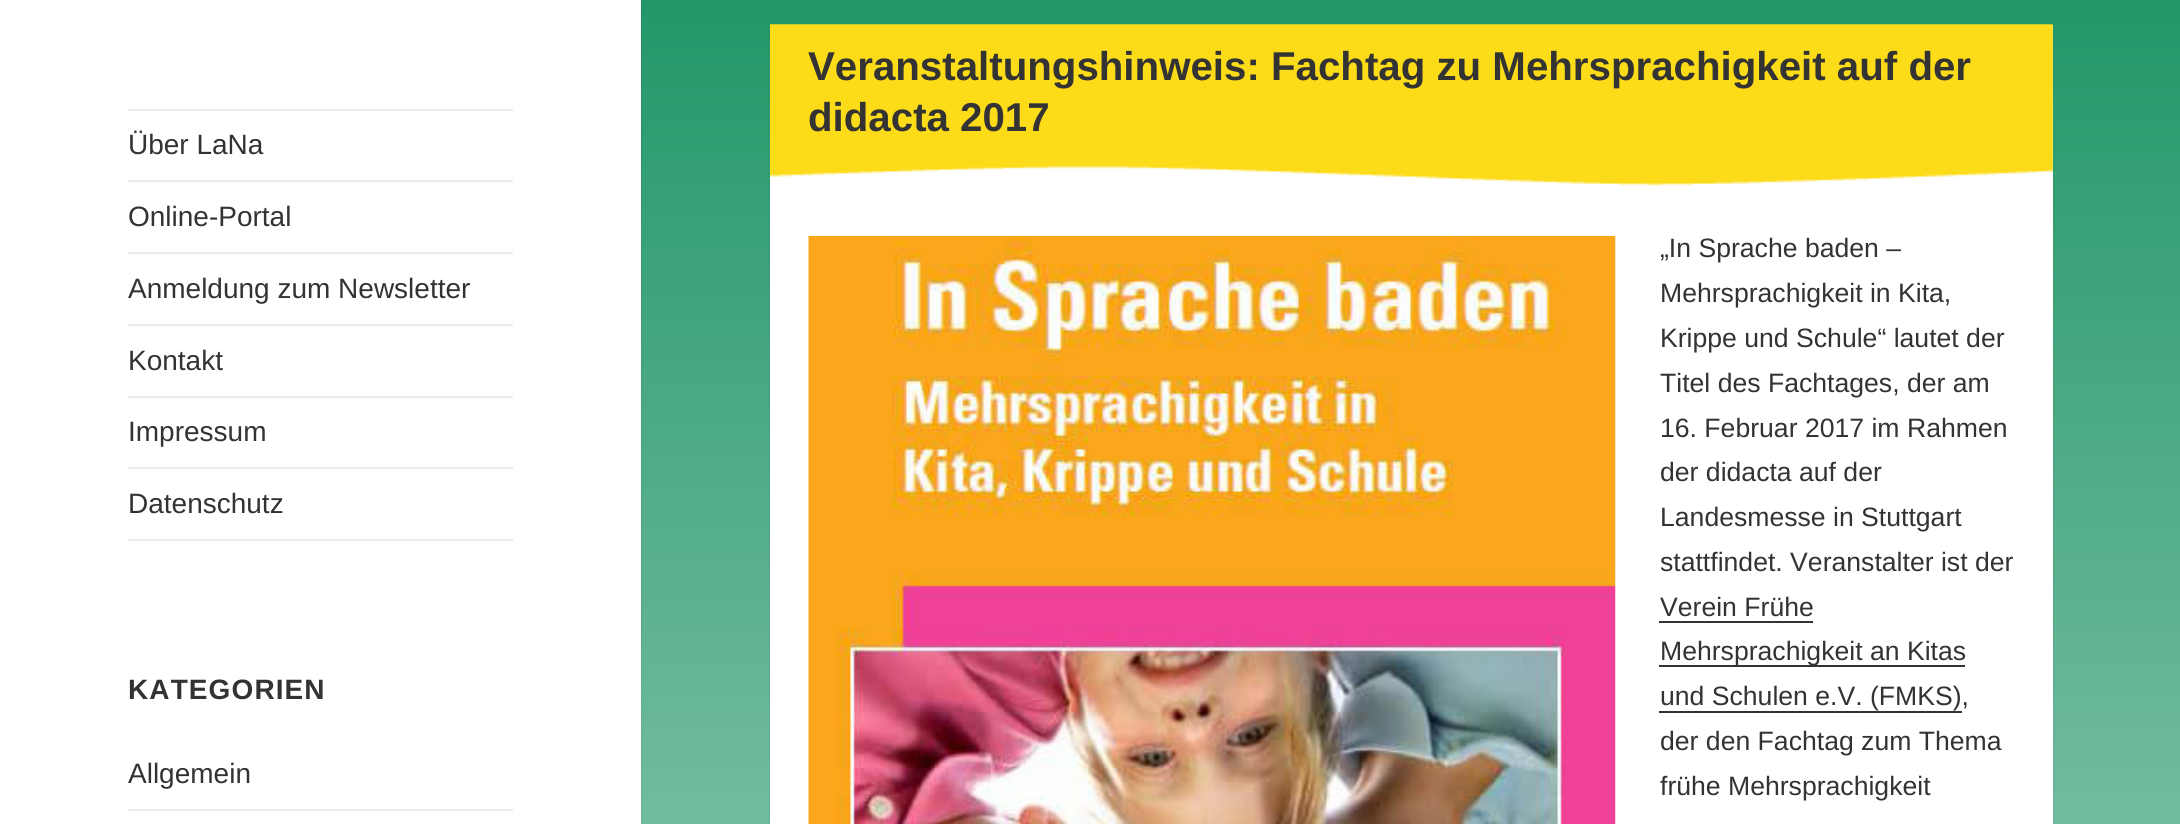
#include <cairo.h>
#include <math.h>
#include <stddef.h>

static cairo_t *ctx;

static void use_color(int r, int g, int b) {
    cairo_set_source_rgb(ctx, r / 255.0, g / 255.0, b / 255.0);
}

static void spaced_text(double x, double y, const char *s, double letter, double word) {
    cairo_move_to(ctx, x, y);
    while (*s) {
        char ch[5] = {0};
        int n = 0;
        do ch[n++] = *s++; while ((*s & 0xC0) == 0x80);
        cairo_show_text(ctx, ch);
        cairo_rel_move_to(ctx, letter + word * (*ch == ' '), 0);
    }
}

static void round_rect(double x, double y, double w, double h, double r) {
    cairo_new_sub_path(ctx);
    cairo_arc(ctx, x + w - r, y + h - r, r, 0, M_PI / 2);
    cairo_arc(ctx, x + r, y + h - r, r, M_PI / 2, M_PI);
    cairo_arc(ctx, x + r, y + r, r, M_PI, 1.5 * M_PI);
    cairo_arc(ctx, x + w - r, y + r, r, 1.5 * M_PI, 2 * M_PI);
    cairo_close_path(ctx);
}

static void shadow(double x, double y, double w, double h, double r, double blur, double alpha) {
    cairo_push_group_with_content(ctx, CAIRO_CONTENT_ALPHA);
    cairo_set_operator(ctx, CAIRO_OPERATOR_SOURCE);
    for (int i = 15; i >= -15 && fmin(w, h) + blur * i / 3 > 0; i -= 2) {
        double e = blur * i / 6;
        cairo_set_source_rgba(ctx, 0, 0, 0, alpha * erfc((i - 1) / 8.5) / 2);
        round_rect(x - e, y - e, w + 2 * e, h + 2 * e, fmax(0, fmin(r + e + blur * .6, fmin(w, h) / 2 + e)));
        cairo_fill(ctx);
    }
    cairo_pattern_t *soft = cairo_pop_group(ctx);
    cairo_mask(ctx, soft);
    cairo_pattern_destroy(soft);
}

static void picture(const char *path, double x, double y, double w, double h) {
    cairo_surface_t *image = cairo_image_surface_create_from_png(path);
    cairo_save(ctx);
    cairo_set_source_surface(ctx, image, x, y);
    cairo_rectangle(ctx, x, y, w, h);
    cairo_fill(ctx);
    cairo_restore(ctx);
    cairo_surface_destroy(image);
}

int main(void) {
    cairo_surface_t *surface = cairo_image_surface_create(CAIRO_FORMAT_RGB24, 2180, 824);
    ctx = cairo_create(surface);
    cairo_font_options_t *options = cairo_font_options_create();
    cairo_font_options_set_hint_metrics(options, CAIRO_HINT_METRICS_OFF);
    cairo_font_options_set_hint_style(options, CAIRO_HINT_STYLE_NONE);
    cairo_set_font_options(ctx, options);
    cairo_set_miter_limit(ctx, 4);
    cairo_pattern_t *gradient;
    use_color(255, 255, 255);
    cairo_paint(ctx);
    gradient = cairo_pattern_create_linear(1090, -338, 1090, 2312);
    cairo_pattern_add_color_stop_rgba(gradient, 0, 0.012, 0.533, 0.325, 1);
    cairo_pattern_add_color_stop_rgba(gradient, 1, 1, 1, 1, 1);
    cairo_set_source(ctx, gradient);
    cairo_pattern_destroy(gradient);
    cairo_rectangle(ctx, 641, 0, 1539, 824);
    cairo_fill(ctx);
    use_color(0, 0, 0);
    shadow(0, 0, 641, 824, 0, 1, 0.15);
    use_color(255, 255, 255);
    cairo_rectangle(ctx, 0, 0, 641, 824);
    cairo_fill(ctx);
    use_color(235, 235, 235);
    cairo_rectangle(ctx, 128, 109, 385, 2);
    cairo_fill(ctx);
    cairo_rectangle(ctx, 128, 539, 385, 2);
    cairo_fill(ctx);
    cairo_select_font_face(ctx, "Liberation Sans", CAIRO_FONT_SLANT_NORMAL, CAIRO_FONT_WEIGHT_NORMAL);
    cairo_set_font_size(ctx, 28);
    use_color(51, 51, 51);
    cairo_move_to(ctx, 128, 154);
    cairo_show_text(ctx, "Über LaNa");
    use_color(235, 235, 235);
    cairo_rectangle(ctx, 128, 180, 385, 2);
    cairo_fill(ctx);
    use_color(51, 51, 51);
    cairo_move_to(ctx, 128, 226);
    cairo_show_text(ctx, "Online-Portal");
    use_color(235, 235, 235);
    cairo_rectangle(ctx, 128, 252, 385, 2);
    cairo_fill(ctx);
    use_color(51, 51, 51);
    cairo_move_to(ctx, 128, 298);
    cairo_show_text(ctx, "Anmeldung zum Newsletter");
    use_color(235, 235, 235);
    cairo_rectangle(ctx, 128, 324, 385, 2);
    cairo_fill(ctx);
    use_color(51, 51, 51);
    cairo_move_to(ctx, 128, 370);
    cairo_show_text(ctx, "Kontakt");
    use_color(235, 235, 235);
    cairo_rectangle(ctx, 128, 396, 385, 2);
    cairo_fill(ctx);
    use_color(51, 51, 51);
    cairo_move_to(ctx, 128, 441);
    cairo_show_text(ctx, "Impressum");
    use_color(235, 235, 235);
    cairo_rectangle(ctx, 128, 467, 385, 2);
    cairo_fill(ctx);
    use_color(51, 51, 51);
    cairo_move_to(ctx, 128, 513);
    cairo_show_text(ctx, "Datenschutz");
    cairo_select_font_face(ctx, "Liberation Sans", CAIRO_FONT_SLANT_NORMAL, CAIRO_FONT_WEIGHT_BOLD);
    spaced_text(128, 699, "KATEGORIEN", 1.1, 0);
    cairo_select_font_face(ctx, "Liberation Sans", CAIRO_FONT_SLANT_NORMAL, CAIRO_FONT_WEIGHT_NORMAL);
    cairo_move_to(ctx, 128, 783);
    cairo_show_text(ctx, "Allgemein");
    use_color(235, 235, 235);
    cairo_rectangle(ctx, 128, 809, 385, 2);
    cairo_fill(ctx);
    use_color(0, 0, 0);
    shadow(770, 25, 1283, 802, 0, 1, 0.15);
    use_color(255, 255, 255);
    cairo_rectangle(ctx, 770, 25, 1283, 799);
    cairo_fill(ctx);
    picture("img1.png", 770, 24, 1283, 162);
    cairo_select_font_face(ctx, "Liberation Sans", CAIRO_FONT_SLANT_NORMAL, CAIRO_FONT_WEIGHT_BOLD);
    cairo_set_font_size(ctx, 40.25);
    use_color(51, 51, 51);
    cairo_move_to(ctx, 808, 80);
    cairo_show_text(ctx, "Veranstaltungshinweis: Fachtag zu Mehrsprachigkeit auf der");
    cairo_move_to(ctx, 808, 131);
    cairo_show_text(ctx, "didacta 2017");
    picture("img2.png", 808, 236, 808, 588);
    cairo_select_font_face(ctx, "Liberation Sans", CAIRO_FONT_SLANT_NORMAL, CAIRO_FONT_WEIGHT_NORMAL);
    cairo_set_font_size(ctx, 26.6);
    cairo_move_to(ctx, 1660, 257);
    cairo_show_text(ctx, "„In Sprache baden –");
    cairo_move_to(ctx, 1660, 302);
    cairo_show_text(ctx, "Mehrsprachigkeit in Kita,");
    cairo_move_to(ctx, 1660, 347);
    cairo_show_text(ctx, "Krippe und Schule“ lautet der");
    cairo_move_to(ctx, 1660, 392);
    cairo_show_text(ctx, "Titel des Fachtages, der am");
    cairo_move_to(ctx, 1660, 437);
    cairo_show_text(ctx, "16. Februar 2017 im Rahmen");
    cairo_move_to(ctx, 1660, 481);
    cairo_show_text(ctx, "der didacta auf der");
    cairo_move_to(ctx, 1660, 526);
    cairo_show_text(ctx, "Landesmesse in Stuttgart");
    cairo_move_to(ctx, 1660, 571);
    cairo_show_text(ctx, "stattfindet. Veranstalter ist der");
    cairo_move_to(ctx, 1660, 616);
    cairo_show_text(ctx, "Verein Frühe");
    cairo_rectangle(ctx, 1659, 621, 154, 2);
    cairo_fill(ctx);
    cairo_rectangle(ctx, 1659, 665, 306, 2);
    cairo_fill(ctx);
    cairo_move_to(ctx, 1660, 660);
    cairo_show_text(ctx, "Mehrsprachigkeit an Kitas");
    cairo_move_to(ctx, 1660, 705);
    cairo_show_text(ctx, "und Schulen e.V. (FMKS),");
    cairo_rectangle(ctx, 1659, 711, 303, 2);
    cairo_fill(ctx);
    cairo_move_to(ctx, 1660, 750);
    cairo_show_text(ctx, "der den Fachtag zum Thema");
    cairo_move_to(ctx, 1660, 795);
    cairo_show_text(ctx, "frühe Mehrsprachigkeit");
    cairo_surface_write_to_png(surface, "result.png");
    cairo_font_options_destroy(options);
    cairo_destroy(ctx);
    cairo_surface_destroy(surface);
    return 0;
}
